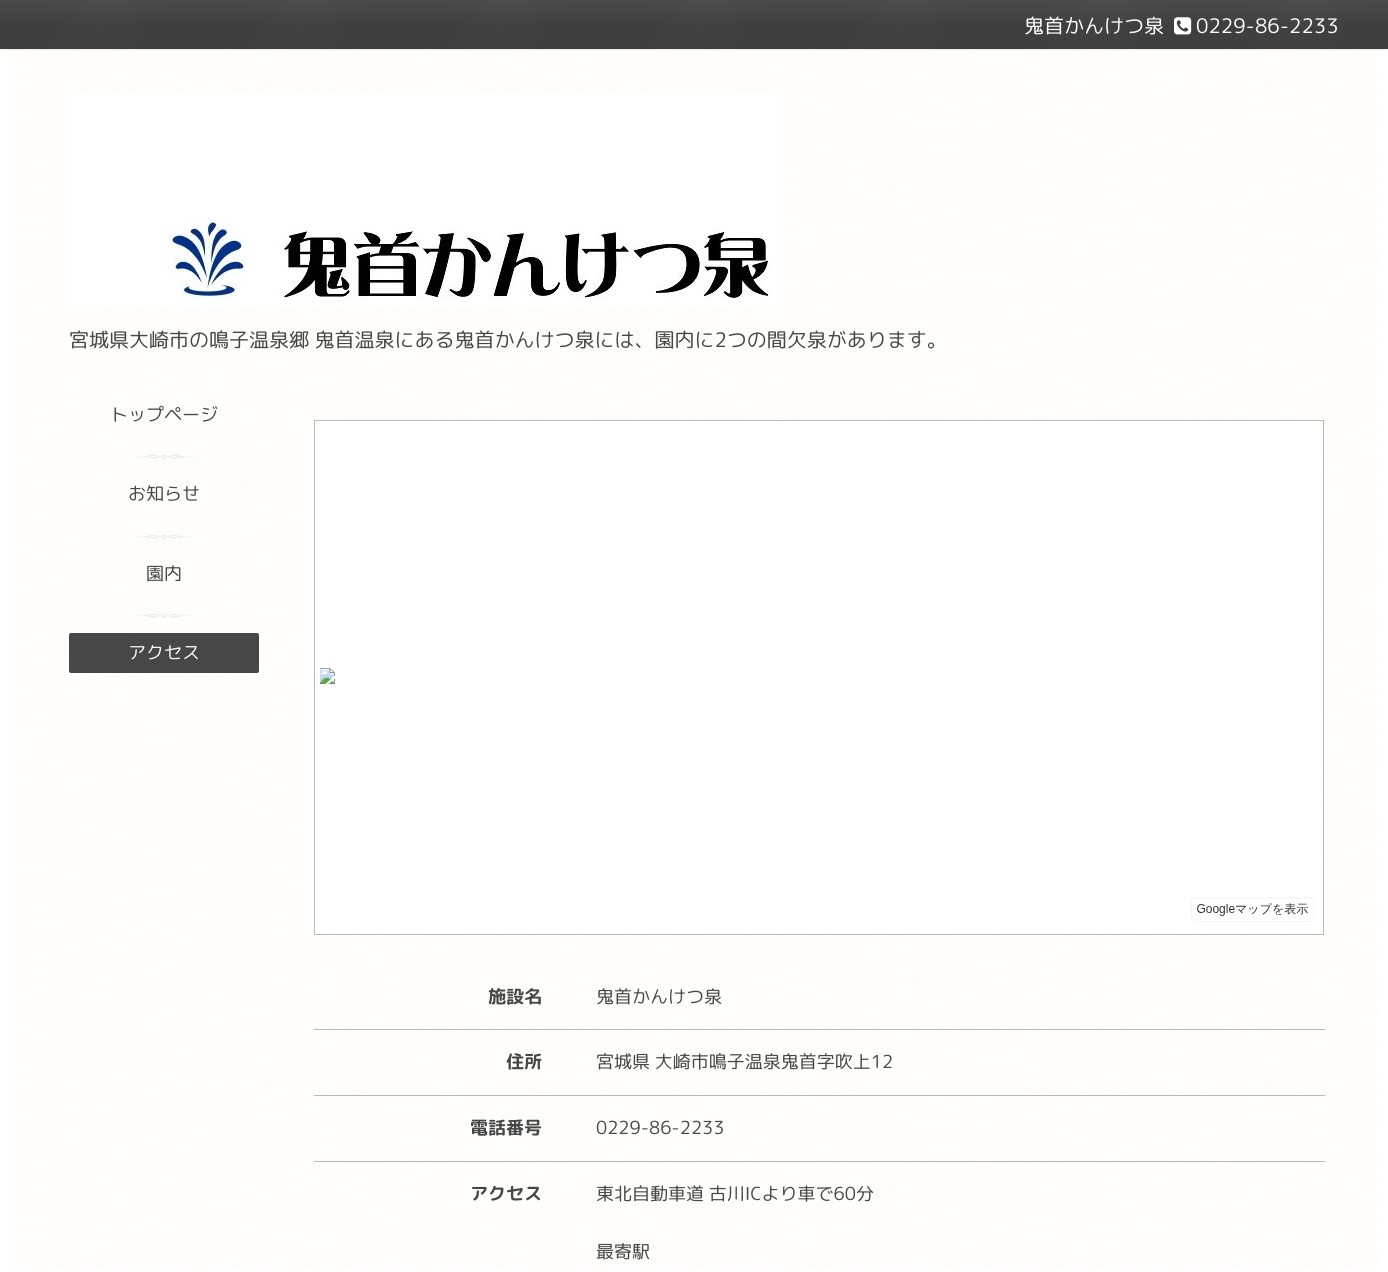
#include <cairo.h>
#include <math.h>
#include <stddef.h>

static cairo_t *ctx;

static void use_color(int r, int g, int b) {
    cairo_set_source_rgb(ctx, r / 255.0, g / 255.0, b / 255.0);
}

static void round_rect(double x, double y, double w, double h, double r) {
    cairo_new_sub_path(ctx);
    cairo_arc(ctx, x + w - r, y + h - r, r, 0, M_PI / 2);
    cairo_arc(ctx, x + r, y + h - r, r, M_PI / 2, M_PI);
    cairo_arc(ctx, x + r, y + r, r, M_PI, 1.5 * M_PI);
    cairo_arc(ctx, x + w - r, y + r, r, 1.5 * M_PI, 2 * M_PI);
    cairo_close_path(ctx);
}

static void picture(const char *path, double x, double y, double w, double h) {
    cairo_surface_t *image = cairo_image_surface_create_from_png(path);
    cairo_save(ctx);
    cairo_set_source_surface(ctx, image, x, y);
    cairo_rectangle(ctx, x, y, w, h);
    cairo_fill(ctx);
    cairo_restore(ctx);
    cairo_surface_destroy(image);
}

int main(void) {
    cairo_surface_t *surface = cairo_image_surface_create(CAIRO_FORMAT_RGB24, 1388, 1272);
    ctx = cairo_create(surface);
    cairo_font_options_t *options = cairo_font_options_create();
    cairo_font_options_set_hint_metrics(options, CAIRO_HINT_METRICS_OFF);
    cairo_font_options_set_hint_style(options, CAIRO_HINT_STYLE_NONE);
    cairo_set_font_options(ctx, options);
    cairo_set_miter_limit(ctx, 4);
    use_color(255, 255, 255);
    cairo_paint(ctx);
    picture("img1.png", 7, 50, 1371, 1220);
    picture("img2.png", 0, 0, 1388, 50);
    cairo_select_font_face(ctx, "Rounded Mplus 1c", CAIRO_FONT_SLANT_NORMAL, CAIRO_FONT_WEIGHT_NORMAL);
    cairo_set_font_size(ctx, 20);
    use_color(255, 255, 255);
    cairo_move_to(ctx, 1024, 33);
    cairo_show_text(ctx, "鬼首かんけつ泉");
    picture("img3.png", 1174, 17, 18, 18);
    cairo_move_to(ctx, 1196, 33);
    cairo_show_text(ctx, "0229-86-2233");
    picture("img4.png", 71, 93, 705, 215);
    use_color(71, 71, 71);
    cairo_move_to(ctx, 69, 347);
    cairo_show_text(ctx, "宮城県大崎市の鳴子温泉郷 鬼首温泉にある鬼首かんけつ泉には、園内に2つの間欠泉があります。");
    cairo_set_font_size(ctx, 18);
    cairo_move_to(ctx, 110, 421);
    cairo_show_text(ctx, "トップページ");
    picture("img5.png", 132, 455, 64, 4);
    cairo_move_to(ctx, 128, 500);
    cairo_show_text(ctx, "お知らせ");
    picture("img6.png", 132, 535, 64, 4);
    cairo_move_to(ctx, 146, 580);
    cairo_show_text(ctx, "園内");
    picture("img7.png", 132, 614, 64, 4);
    round_rect(69, 633, 190, 40, 2);
    cairo_fill(ctx);
    use_color(255, 255, 255);
    cairo_move_to(ctx, 128, 659);
    cairo_show_text(ctx, "アクセス");
    cairo_rectangle(ctx, 314.5, 420.5, 1009, 514);
    cairo_fill_preserve(ctx);
    use_color(184, 184, 184);
    cairo_set_line_width(ctx, 1);
    cairo_stroke(ctx);
    picture("img8.png", 320, 668, 994, 254);
    cairo_select_font_face(ctx, "Rounded Mplus 1c Bold", CAIRO_FONT_SLANT_NORMAL, CAIRO_FONT_WEIGHT_BOLD);
    use_color(71, 71, 71);
    cairo_move_to(ctx, 488, 1003);
    cairo_show_text(ctx, "施設名");
    cairo_select_font_face(ctx, "Rounded Mplus 1c", CAIRO_FONT_SLANT_NORMAL, CAIRO_FONT_WEIGHT_NORMAL);
    cairo_move_to(ctx, 596, 1003);
    cairo_show_text(ctx, "鬼首かんけつ泉");
    cairo_select_font_face(ctx, "Rounded Mplus 1c Bold", CAIRO_FONT_SLANT_NORMAL, CAIRO_FONT_WEIGHT_BOLD);
    cairo_move_to(ctx, 506, 1068);
    cairo_show_text(ctx, "住所");
    use_color(184, 184, 184);
    cairo_rectangle(ctx, 314, 1029, 1011, 1);
    cairo_fill(ctx);
    cairo_select_font_face(ctx, "Rounded Mplus 1c", CAIRO_FONT_SLANT_NORMAL, CAIRO_FONT_WEIGHT_NORMAL);
    use_color(71, 71, 71);
    cairo_move_to(ctx, 596, 1068);
    cairo_show_text(ctx, "宮城県 大崎市鳴子温泉鬼首字吹上12");
    cairo_select_font_face(ctx, "Rounded Mplus 1c Bold", CAIRO_FONT_SLANT_NORMAL, CAIRO_FONT_WEIGHT_BOLD);
    cairo_move_to(ctx, 470, 1134);
    cairo_show_text(ctx, "電話番号");
    use_color(184, 184, 184);
    cairo_rectangle(ctx, 314, 1095, 1011, 1);
    cairo_fill(ctx);
    cairo_select_font_face(ctx, "Rounded Mplus 1c", CAIRO_FONT_SLANT_NORMAL, CAIRO_FONT_WEIGHT_NORMAL);
    use_color(71, 71, 71);
    cairo_move_to(ctx, 596, 1134);
    cairo_show_text(ctx, "0229-86-2233");
    cairo_select_font_face(ctx, "Rounded Mplus 1c Bold", CAIRO_FONT_SLANT_NORMAL, CAIRO_FONT_WEIGHT_BOLD);
    cairo_move_to(ctx, 470, 1200);
    cairo_show_text(ctx, "アクセス");
    use_color(184, 184, 184);
    cairo_rectangle(ctx, 314, 1161, 1011, 1);
    cairo_fill(ctx);
    cairo_select_font_face(ctx, "Rounded Mplus 1c", CAIRO_FONT_SLANT_NORMAL, CAIRO_FONT_WEIGHT_NORMAL);
    use_color(71, 71, 71);
    cairo_move_to(ctx, 596, 1200);
    cairo_show_text(ctx, "東北自動車道 古川ICより車で60分");
    cairo_move_to(ctx, 596, 1258);
    cairo_show_text(ctx, "最寄駅");
    cairo_surface_write_to_png(surface, "result.png");
    cairo_font_options_destroy(options);
    cairo_destroy(ctx);
    cairo_surface_destroy(surface);
    return 0;
}
